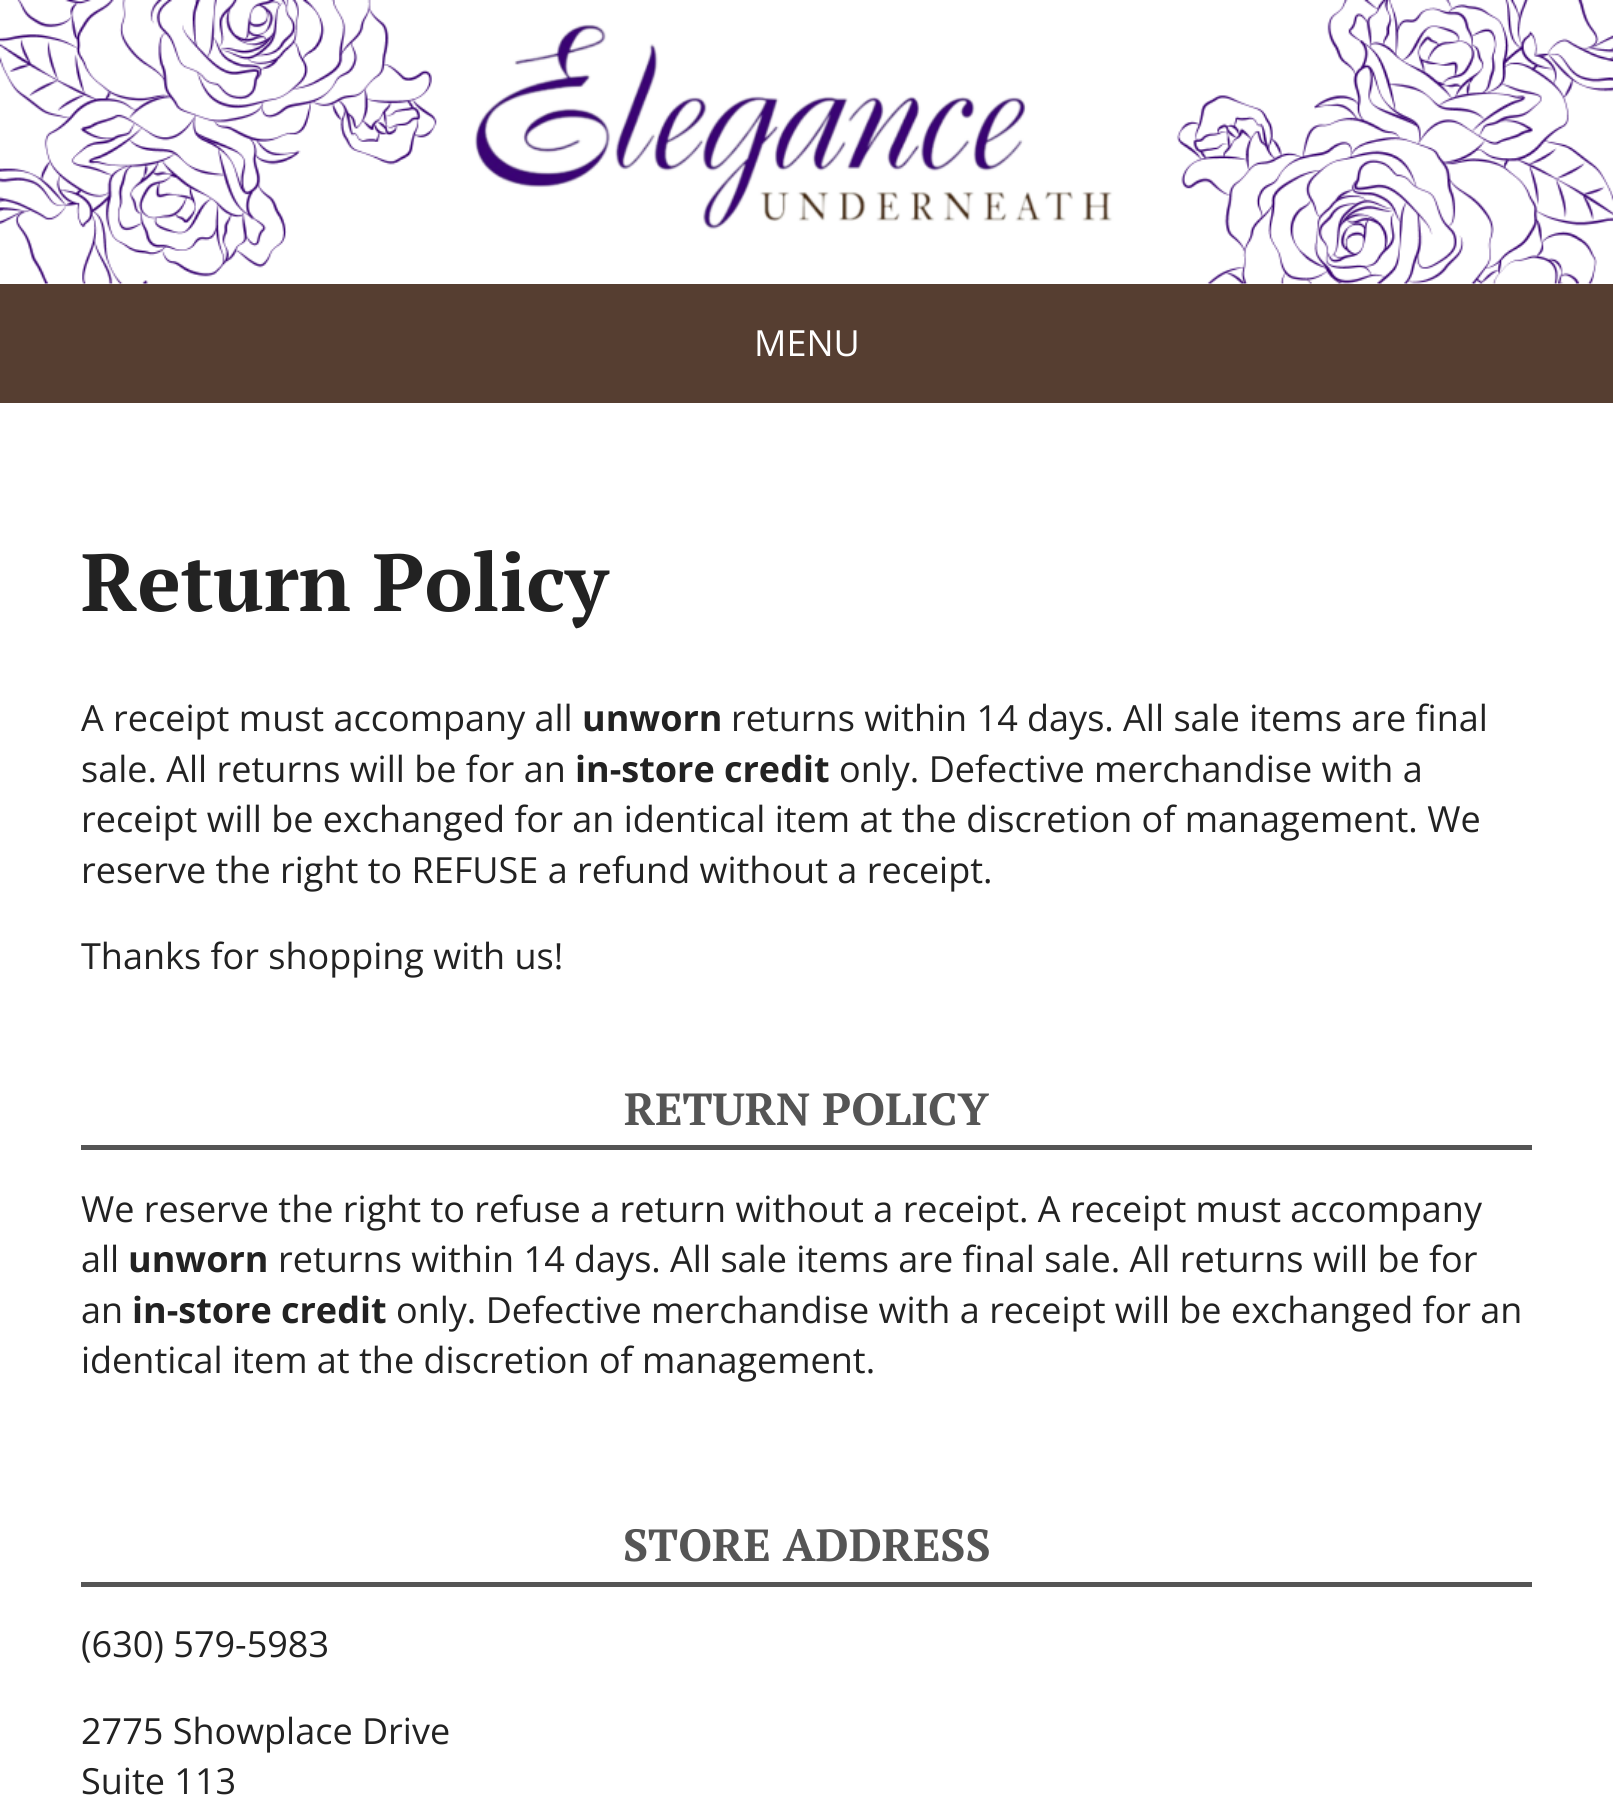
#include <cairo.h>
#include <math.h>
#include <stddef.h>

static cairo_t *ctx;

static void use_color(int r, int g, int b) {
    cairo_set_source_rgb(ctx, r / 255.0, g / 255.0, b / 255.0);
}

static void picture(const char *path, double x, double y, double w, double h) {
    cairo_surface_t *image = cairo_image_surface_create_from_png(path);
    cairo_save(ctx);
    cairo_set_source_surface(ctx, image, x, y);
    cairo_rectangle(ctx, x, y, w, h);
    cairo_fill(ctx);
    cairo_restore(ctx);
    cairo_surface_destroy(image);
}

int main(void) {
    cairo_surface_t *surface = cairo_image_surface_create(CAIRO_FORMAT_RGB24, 1613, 1819);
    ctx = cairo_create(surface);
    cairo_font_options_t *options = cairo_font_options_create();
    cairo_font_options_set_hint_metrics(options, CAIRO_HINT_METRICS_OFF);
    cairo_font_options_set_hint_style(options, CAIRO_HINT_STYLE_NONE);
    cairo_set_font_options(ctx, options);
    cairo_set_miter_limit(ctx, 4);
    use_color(255, 255, 255);
    cairo_paint(ctx);
    picture("img1.png", 0, 0, 1613, 284);
    use_color(86, 62, 49);
    cairo_rectangle(ctx, 0, 284, 1613, 119);
    cairo_fill(ctx);
    cairo_select_font_face(ctx, "Open Sans", CAIRO_FONT_SLANT_NORMAL, CAIRO_FONT_WEIGHT_NORMAL);
    cairo_set_font_size(ctx, 36);
    use_color(255, 255, 255);
    cairo_move_to(ctx, 754, 356);
    cairo_show_text(ctx, "MENU");
    cairo_select_font_face(ctx, "PT Serif", CAIRO_FONT_SLANT_NORMAL, CAIRO_FONT_WEIGHT_BOLD);
    cairo_set_font_size(ctx, 81);
    use_color(34, 34, 34);
    cairo_move_to(ctx, 81, 611);
    cairo_show_text(ctx, "Return Policy");
    cairo_select_font_face(ctx, "Open Sans", CAIRO_FONT_SLANT_NORMAL, CAIRO_FONT_WEIGHT_NORMAL);
    cairo_set_font_size(ctx, 36);
    cairo_move_to(ctx, 81, 731);
    cairo_show_text(ctx, "A receipt must accompany all");
    cairo_select_font_face(ctx, "Open Sans", CAIRO_FONT_SLANT_NORMAL, CAIRO_FONT_WEIGHT_BOLD);
    cairo_move_to(ctx, 582, 731);
    cairo_show_text(ctx, "unworn");
    cairo_select_font_face(ctx, "Open Sans", CAIRO_FONT_SLANT_NORMAL, CAIRO_FONT_WEIGHT_NORMAL);
    cairo_move_to(ctx, 731, 731);
    cairo_show_text(ctx, "returns within 14 days. All sale items are final");
    cairo_move_to(ctx, 81, 782);
    cairo_show_text(ctx, "sale. All returns will be for an");
    cairo_select_font_face(ctx, "Open Sans", CAIRO_FONT_SLANT_NORMAL, CAIRO_FONT_WEIGHT_BOLD);
    cairo_move_to(ctx, 575, 782);
    cairo_show_text(ctx, "in-store credit");
    cairo_select_font_face(ctx, "Open Sans", CAIRO_FONT_SLANT_NORMAL, CAIRO_FONT_WEIGHT_NORMAL);
    cairo_move_to(ctx, 839, 782);
    cairo_show_text(ctx, "only. Defective merchandise with a");
    cairo_move_to(ctx, 81, 832);
    cairo_show_text(ctx, "receipt will be exchanged for an identical item at the discretion of management. We");
    cairo_move_to(ctx, 81, 883);
    cairo_show_text(ctx, "reserve the right to REFUSE a refund without a receipt.");
    cairo_move_to(ctx, 81, 969);
    cairo_show_text(ctx, "Thanks for shopping with us!");
    use_color(85, 85, 85);
    cairo_rectangle(ctx, 81, 1145, 1451, 5);
    cairo_fill(ctx);
    cairo_select_font_face(ctx, "PT Serif", CAIRO_FONT_SLANT_NORMAL, CAIRO_FONT_WEIGHT_BOLD);
    cairo_set_font_size(ctx, 45);
    cairo_move_to(ctx, 624, 1125);
    cairo_show_text(ctx, "RETURN POLICY");
    cairo_select_font_face(ctx, "Open Sans", CAIRO_FONT_SLANT_NORMAL, CAIRO_FONT_WEIGHT_NORMAL);
    cairo_set_font_size(ctx, 36);
    use_color(34, 34, 34);
    cairo_move_to(ctx, 81, 1222);
    cairo_show_text(ctx, "We reserve the right to refuse a return without a receipt. A receipt must accompany");
    cairo_move_to(ctx, 81, 1272);
    cairo_show_text(ctx, "all");
    cairo_select_font_face(ctx, "Open Sans", CAIRO_FONT_SLANT_NORMAL, CAIRO_FONT_WEIGHT_BOLD);
    cairo_move_to(ctx, 128, 1272);
    cairo_show_text(ctx, "unworn");
    cairo_select_font_face(ctx, "Open Sans", CAIRO_FONT_SLANT_NORMAL, CAIRO_FONT_WEIGHT_NORMAL);
    cairo_move_to(ctx, 278, 1272);
    cairo_show_text(ctx, "returns within 14 days. All sale items are final sale. All returns will be for");
    cairo_move_to(ctx, 81, 1323);
    cairo_show_text(ctx, "an");
    cairo_select_font_face(ctx, "Open Sans", CAIRO_FONT_SLANT_NORMAL, CAIRO_FONT_WEIGHT_BOLD);
    cairo_move_to(ctx, 132, 1323);
    cairo_show_text(ctx, "in-store credit");
    cairo_select_font_face(ctx, "Open Sans", CAIRO_FONT_SLANT_NORMAL, CAIRO_FONT_WEIGHT_NORMAL);
    cairo_move_to(ctx, 396, 1323);
    cairo_show_text(ctx, "only. Defective merchandise with a receipt will be exchanged for an");
    cairo_move_to(ctx, 81, 1373);
    cairo_show_text(ctx, "identical item at the discretion of management.");
    use_color(85, 85, 85);
    cairo_rectangle(ctx, 81, 1582, 1451, 5);
    cairo_fill(ctx);
    cairo_select_font_face(ctx, "PT Serif", CAIRO_FONT_SLANT_NORMAL, CAIRO_FONT_WEIGHT_BOLD);
    cairo_set_font_size(ctx, 45);
    cairo_move_to(ctx, 623, 1561);
    cairo_show_text(ctx, "STORE ADDRESS");
    cairo_select_font_face(ctx, "Open Sans", CAIRO_FONT_SLANT_NORMAL, CAIRO_FONT_WEIGHT_NORMAL);
    cairo_set_font_size(ctx, 36);
    use_color(34, 34, 34);
    cairo_move_to(ctx, 81, 1657);
    cairo_show_text(ctx, "(630) 579-5983");
    cairo_move_to(ctx, 81, 1744);
    cairo_show_text(ctx, "2775 Showplace Drive");
    cairo_move_to(ctx, 81, 1794);
    cairo_show_text(ctx, "Suite 113");
    cairo_surface_write_to_png(surface, "result.png");
    cairo_font_options_destroy(options);
    cairo_destroy(ctx);
    cairo_surface_destroy(surface);
    return 0;
}
